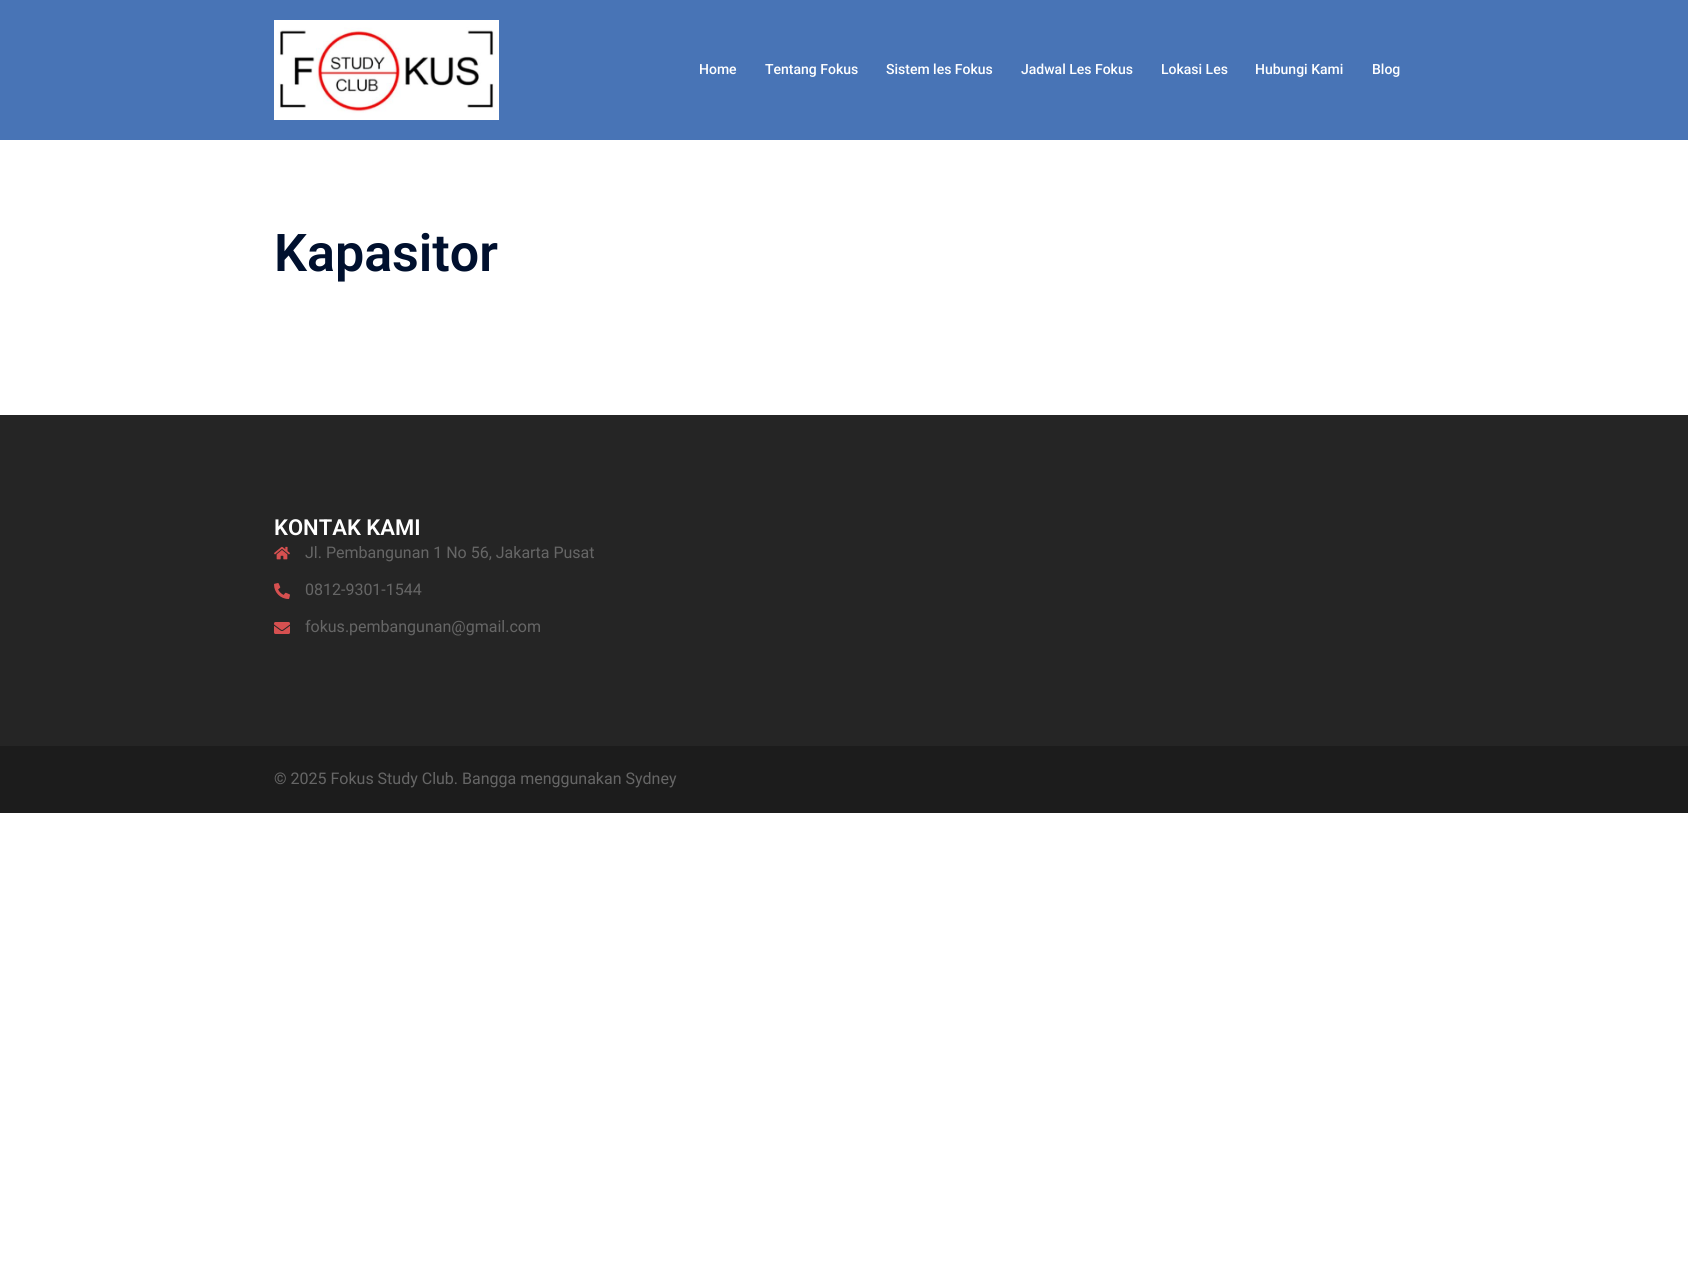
#include <cairo.h>
#include <math.h>
#include <stddef.h>

static cairo_t *ctx;

static void use_color(int r, int g, int b) {
    cairo_set_source_rgb(ctx, r / 255.0, g / 255.0, b / 255.0);
}

static void picture(const char *path, double x, double y, double w, double h) {
    cairo_surface_t *image = cairo_image_surface_create_from_png(path);
    cairo_save(ctx);
    cairo_set_source_surface(ctx, image, x, y);
    cairo_rectangle(ctx, x, y, w, h);
    cairo_fill(ctx);
    cairo_restore(ctx);
    cairo_surface_destroy(image);
}

int main(void) {
    cairo_surface_t *surface = cairo_image_surface_create(CAIRO_FORMAT_RGB24, 1688, 1281);
    ctx = cairo_create(surface);
    cairo_font_options_t *options = cairo_font_options_create();
    cairo_font_options_set_hint_metrics(options, CAIRO_HINT_METRICS_OFF);
    cairo_font_options_set_hint_style(options, CAIRO_HINT_STYLE_NONE);
    cairo_set_font_options(ctx, options);
    cairo_set_miter_limit(ctx, 4);
    use_color(255, 255, 255);
    cairo_paint(ctx);
    use_color(72, 116, 182);
    cairo_rectangle(ctx, 0, 0, 1688, 140);
    cairo_fill(ctx);
    picture("img1.png", 274, 20, 225, 100);
    cairo_select_font_face(ctx, "Roboto Medium", CAIRO_FONT_SLANT_NORMAL, CAIRO_FONT_WEIGHT_NORMAL);
    cairo_set_font_size(ctx, 14);
    use_color(255, 255, 255);
    cairo_move_to(ctx, 699, 74);
    cairo_show_text(ctx, "Home");
    cairo_move_to(ctx, 765, 74);
    cairo_show_text(ctx, "Tentang Fokus");
    cairo_move_to(ctx, 886, 74);
    cairo_show_text(ctx, "Sistem les Fokus");
    cairo_move_to(ctx, 1021, 74);
    cairo_show_text(ctx, "Jadwal Les Fokus");
    cairo_move_to(ctx, 1161, 74);
    cairo_show_text(ctx, "Lokasi Les");
    cairo_move_to(ctx, 1255, 74);
    cairo_show_text(ctx, "Hubungi Kami");
    cairo_move_to(ctx, 1372, 74);
    cairo_show_text(ctx, "Blog");
    cairo_select_font_face(ctx, "Roboto SemiBold", CAIRO_FONT_SLANT_NORMAL, CAIRO_FONT_WEIGHT_NORMAL);
    cairo_set_font_size(ctx, 52);
    use_color(0, 16, 46);
    cairo_move_to(ctx, 274, 271);
    cairo_show_text(ctx, "Kapasitor");
    use_color(37, 37, 37);
    cairo_rectangle(ctx, 0, 415, 1688, 331);
    cairo_fill(ctx);
    cairo_set_font_size(ctx, 22);
    use_color(255, 255, 255);
    cairo_move_to(ctx, 274, 535);
    cairo_show_text(ctx, "KONTAK KAMI");
    picture("img2.png", 274, 546, 16, 14);
    cairo_select_font_face(ctx, "Roboto", CAIRO_FONT_SLANT_NORMAL, CAIRO_FONT_WEIGHT_NORMAL);
    cairo_set_font_size(ctx, 16);
    use_color(102, 102, 102);
    cairo_move_to(ctx, 305, 558);
    cairo_show_text(ctx, "Jl. Pembangunan 1 No 56, Jakarta Pusat");
    picture("img3.png", 274, 583, 16, 16);
    cairo_move_to(ctx, 305, 595);
    cairo_show_text(ctx, "0812-9301-1544");
    picture("img4.png", 274, 622, 16, 12);
    cairo_move_to(ctx, 305, 632);
    cairo_show_text(ctx, "fokus.pembangunan@gmail.com");
    use_color(28, 28, 28);
    cairo_rectangle(ctx, 0, 746, 1688, 67);
    cairo_fill(ctx);
    use_color(102, 102, 102);
    cairo_move_to(ctx, 274, 784);
    cairo_show_text(ctx, "© 2025 Fokus Study Club. Bangga menggunakan Sydney");
    cairo_surface_write_to_png(surface, "result.png");
    cairo_font_options_destroy(options);
    cairo_destroy(ctx);
    cairo_surface_destroy(surface);
    return 0;
}
